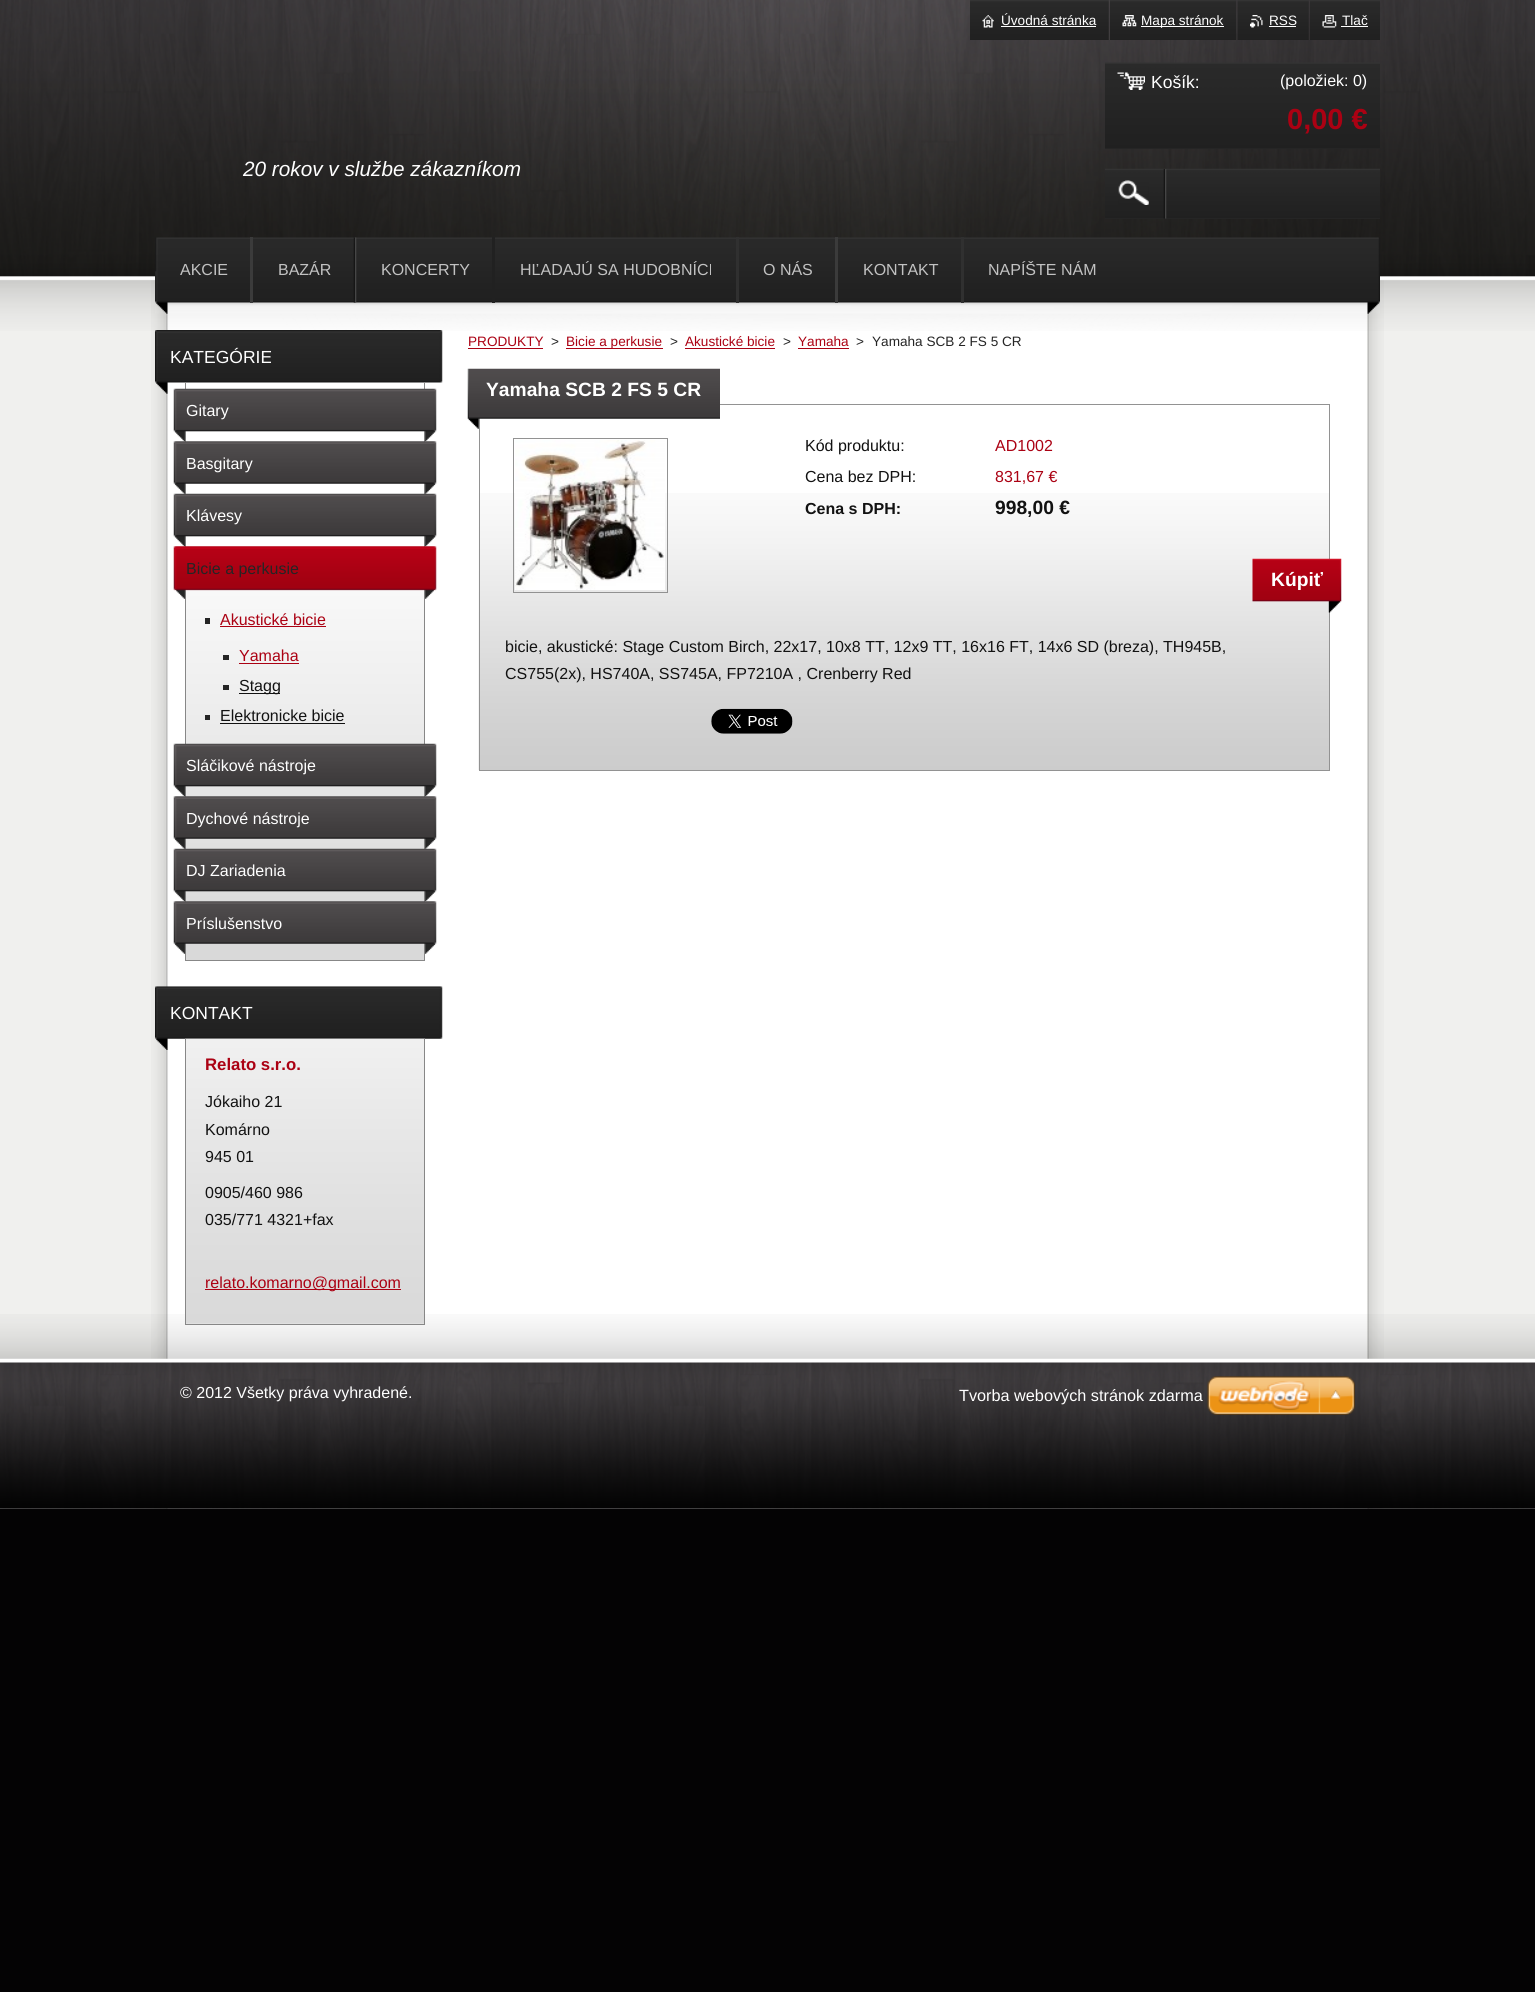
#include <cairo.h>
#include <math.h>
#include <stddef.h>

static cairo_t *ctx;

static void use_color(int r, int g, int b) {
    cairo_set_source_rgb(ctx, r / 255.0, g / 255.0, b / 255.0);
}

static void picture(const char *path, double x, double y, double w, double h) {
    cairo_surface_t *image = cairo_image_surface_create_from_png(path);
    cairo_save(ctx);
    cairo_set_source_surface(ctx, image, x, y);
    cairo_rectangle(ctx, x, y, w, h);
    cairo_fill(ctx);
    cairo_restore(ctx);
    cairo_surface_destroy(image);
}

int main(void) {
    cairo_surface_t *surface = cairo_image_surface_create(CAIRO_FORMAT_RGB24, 1535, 1992);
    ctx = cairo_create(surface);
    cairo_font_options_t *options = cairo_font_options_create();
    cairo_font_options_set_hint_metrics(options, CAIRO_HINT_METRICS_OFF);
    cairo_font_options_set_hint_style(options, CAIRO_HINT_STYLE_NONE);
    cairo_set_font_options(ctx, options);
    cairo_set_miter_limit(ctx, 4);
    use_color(4, 3, 4);
    cairo_paint(ctx);
    use_color(240, 240, 238);
    cairo_rectangle(ctx, 0, 279, 1535, 1230);
    cairo_fill(ctx);
    picture("img1.png", 151, 279, 1233, 1230);
    picture("img2.png", 0, 0, 1535, 331);
    picture("img3.png", 0, 1314, 1535, 195);
    picture("img4.png", 970, 0, 139, 40);
    picture("img5.png", 982, 15, 12, 13);
    cairo_select_font_face(ctx, "Liberation Sans", CAIRO_FONT_SLANT_NORMAL, CAIRO_FONT_WEIGHT_NORMAL);
    cairo_set_font_size(ctx, 13.6);
    use_color(255, 255, 255);
    cairo_move_to(ctx, 1001, 25);
    cairo_show_text(ctx, "Úvodná stránka");
    cairo_rectangle(ctx, 1001, 26, 95, 1);
    cairo_fill(ctx);
    picture("img6.png", 1110, 0, 127, 40);
    picture("img7.png", 1122, 15, 15, 12);
    cairo_rectangle(ctx, 1141, 26, 83, 1);
    cairo_fill(ctx);
    cairo_move_to(ctx, 1141, 25);
    cairo_show_text(ctx, "Mapa stránok");
    picture("img8.png", 1237, 0, 72, 40);
    picture("img9.png", 1250, 15, 13, 13);
    cairo_move_to(ctx, 1269, 25);
    cairo_show_text(ctx, "RSS");
    cairo_rectangle(ctx, 1269, 26, 27, 1);
    cairo_fill(ctx);
    picture("img10.png", 1310, 0, 70, 40);
    picture("img11.png", 1322, 15, 15, 13);
    cairo_move_to(ctx, 1342, 25);
    cairo_show_text(ctx, "Tlač");
    cairo_rectangle(ctx, 1341, 26, 27, 1);
    cairo_fill(ctx);
    use_color(37, 37, 37);
    cairo_rectangle(ctx, 1105, 148, 275, 1);
    cairo_fill(ctx);
    picture("img12.png", 1105, 62, 275, 86);
    picture("img13.png", 1117, 72, 28, 18);
    cairo_set_font_size(ctx, 17.5);
    use_color(255, 255, 255);
    cairo_move_to(ctx, 1151, 88);
    cairo_show_text(ctx, "Košík:");
    cairo_set_font_size(ctx, 16);
    cairo_move_to(ctx, 1280, 86);
    cairo_show_text(ctx, "(položiek: 0)");
    cairo_select_font_face(ctx, "Liberation Sans", CAIRO_FONT_SLANT_NORMAL, CAIRO_FONT_WEIGHT_BOLD);
    cairo_set_font_size(ctx, 29);
    use_color(171, 1, 19);
    cairo_move_to(ctx, 1287, 129);
    cairo_show_text(ctx, "0,00 €");
    cairo_select_font_face(ctx, "Liberation Sans", CAIRO_FONT_SLANT_ITALIC, CAIRO_FONT_WEIGHT_NORMAL);
    cairo_set_font_size(ctx, 20.75);
    use_color(255, 255, 255);
    cairo_move_to(ctx, 243, 176);
    cairo_show_text(ctx, "20 rokov v službe zákazníkom");
    use_color(37, 37, 37);
    cairo_rectangle(ctx, 1105, 218, 275, 1);
    cairo_fill(ctx);
    picture("img14.png", 1105, 168, 275, 50);
    picture("img15.png", 1118, 180, 31, 25);
    picture("img16.png", 1163, 169, 4, 50);
    picture("img17.png", 155, 237, 1225, 77);
    use_color(59, 59, 59);
    cairo_rectangle(ctx, 250, 237, 3, 66);
    cairo_fill(ctx);
    cairo_select_font_face(ctx, "Liberation Sans", CAIRO_FONT_SLANT_NORMAL, CAIRO_FONT_WEIGHT_NORMAL);
    cairo_set_font_size(ctx, 16);
    use_color(194, 194, 194);
    cairo_move_to(ctx, 180, 275);
    cairo_show_text(ctx, "AKCIE");
    picture("img18.png", 353, 237, 4, 66);
    cairo_move_to(ctx, 278, 275);
    cairo_show_text(ctx, "BAZÁR");
    use_color(33, 33, 33);
    cairo_rectangle(ctx, 492, 237, 3, 66);
    cairo_fill(ctx);
    use_color(194, 194, 194);
    cairo_move_to(ctx, 381, 275);
    cairo_show_text(ctx, "KONCERTY");
    use_color(48, 48, 48);
    cairo_rectangle(ctx, 736, 237, 3, 66);
    cairo_fill(ctx);
    use_color(194, 194, 194);
    cairo_move_to(ctx, 520, 275);
    cairo_show_text(ctx, "HĽADAJÚ SA HUDOBNÍCI");
    use_color(59, 59, 59);
    cairo_rectangle(ctx, 835, 237, 3, 66);
    cairo_fill(ctx);
    use_color(194, 194, 194);
    cairo_move_to(ctx, 763, 275);
    cairo_show_text(ctx, "O NÁS");
    use_color(48, 48, 48);
    cairo_rectangle(ctx, 961, 237, 3, 66);
    cairo_fill(ctx);
    use_color(194, 194, 194);
    cairo_move_to(ctx, 863, 275);
    cairo_show_text(ctx, "KONTAKT");
    cairo_move_to(ctx, 988, 275);
    cairo_show_text(ctx, "NAPÍŠTE NÁM");
    use_color(135, 135, 135);
    cairo_rectangle(ctx, 424, 383, 1, 578);
    cairo_fill(ctx);
    cairo_rectangle(ctx, 185, 960, 240, 1);
    cairo_fill(ctx);
    cairo_rectangle(ctx, 185, 383, 1, 578);
    cairo_fill(ctx);
    picture("img19.png", 155, 330, 288, 64);
    cairo_set_font_size(ctx, 17.5);
    use_color(255, 255, 255);
    cairo_move_to(ctx, 170, 363);
    cairo_show_text(ctx, "KATEGÓRIE");
    picture("img20.png", 186, 589, 238, 371);
    picture("img21.png", 173, 388, 264, 54);
    cairo_set_font_size(ctx, 16);
    cairo_move_to(ctx, 186, 416);
    cairo_show_text(ctx, "Gitary");
    picture("img22.png", 173, 441, 264, 53);
    cairo_move_to(ctx, 186, 469);
    cairo_show_text(ctx, "Basgitary");
    picture("img23.png", 173, 493, 264, 54);
    cairo_move_to(ctx, 186, 521);
    cairo_show_text(ctx, "Klávesy");
    picture("img24.png", 173, 546, 264, 53);
    use_color(37, 37, 37);
    cairo_move_to(ctx, 186, 574);
    cairo_show_text(ctx, "Bicie a perkusie");
    cairo_rectangle(ctx, 205, 618, 5, 6);
    cairo_fill(ctx);
    use_color(171, 1, 19);
    cairo_move_to(ctx, 220, 625);
    cairo_show_text(ctx, "Akustické bicie");
    cairo_rectangle(ctx, 220, 626, 106, 1);
    cairo_fill(ctx);
    use_color(37, 37, 37);
    cairo_rectangle(ctx, 223, 655, 6, 5);
    cairo_fill(ctx);
    use_color(171, 1, 19);
    cairo_move_to(ctx, 239, 661);
    cairo_show_text(ctx, "Yamaha");
    cairo_rectangle(ctx, 239, 663, 60, 1);
    cairo_fill(ctx);
    use_color(37, 37, 37);
    cairo_rectangle(ctx, 223, 685, 6, 5);
    cairo_fill(ctx);
    use_color(18, 18, 18);
    cairo_rectangle(ctx, 239, 693, 41, 1);
    cairo_fill(ctx);
    cairo_move_to(ctx, 239, 691);
    cairo_show_text(ctx, "Stagg");
    use_color(37, 37, 37);
    cairo_rectangle(ctx, 205, 715, 5, 5);
    cairo_fill(ctx);
    use_color(18, 18, 18);
    cairo_move_to(ctx, 220, 721);
    cairo_show_text(ctx, "Elektronicke bicie");
    cairo_rectangle(ctx, 220, 723, 125, 1);
    cairo_fill(ctx);
    picture("img25.png", 173, 743, 264, 54);
    use_color(255, 255, 255);
    cairo_move_to(ctx, 186, 771);
    cairo_show_text(ctx, "Sláčikové nástroje");
    picture("img26.png", 173, 796, 264, 53);
    cairo_move_to(ctx, 186, 824);
    cairo_show_text(ctx, "Dychové nástroje");
    picture("img27.png", 173, 848, 264, 54);
    cairo_move_to(ctx, 186, 876);
    cairo_show_text(ctx, "DJ Zariadenia");
    picture("img28.png", 173, 901, 264, 53);
    cairo_move_to(ctx, 186, 929);
    cairo_show_text(ctx, "Príslušenstvo");
    picture("img29.png", 155, 986, 288, 64);
    cairo_set_font_size(ctx, 17.5);
    cairo_move_to(ctx, 170, 1019);
    cairo_show_text(ctx, "KONTAKT");
    picture("img30.png", 185, 1038, 240, 286);
    use_color(135, 135, 135);
    cairo_rectangle(ctx, 424, 1039, 1, 286);
    cairo_fill(ctx);
    cairo_rectangle(ctx, 185, 1324, 240, 1);
    cairo_fill(ctx);
    cairo_rectangle(ctx, 185, 1039, 1, 286);
    cairo_fill(ctx);
    cairo_select_font_face(ctx, "Liberation Sans", CAIRO_FONT_SLANT_NORMAL, CAIRO_FONT_WEIGHT_BOLD);
    cairo_set_font_size(ctx, 16.75);
    use_color(171, 1, 19);
    cairo_move_to(ctx, 205, 1070);
    cairo_show_text(ctx, "Relato s.r.o.");
    cairo_select_font_face(ctx, "Liberation Sans", CAIRO_FONT_SLANT_NORMAL, CAIRO_FONT_WEIGHT_NORMAL);
    cairo_set_font_size(ctx, 16);
    use_color(18, 18, 18);
    cairo_move_to(ctx, 205, 1107);
    cairo_show_text(ctx, "Jókaiho 21");
    cairo_move_to(ctx, 205, 1135);
    cairo_show_text(ctx, "Komárno");
    cairo_move_to(ctx, 205, 1162);
    cairo_show_text(ctx, "945 01");
    cairo_move_to(ctx, 205, 1198);
    cairo_show_text(ctx, "0905/460 986");
    cairo_move_to(ctx, 205, 1225);
    cairo_show_text(ctx, "035/771 4321+fax");
    use_color(171, 1, 19);
    cairo_rectangle(ctx, 205, 1289, 196, 1);
    cairo_fill(ctx);
    cairo_move_to(ctx, 205, 1288);
    cairo_show_text(ctx, "relato.komarno@gmail.com");
    cairo_set_font_size(ctx, 13.6);
    cairo_move_to(ctx, 468, 346);
    cairo_show_text(ctx, "PRODUKTY");
    cairo_rectangle(ctx, 468, 348, 75, 1);
    cairo_fill(ctx);
    use_color(37, 37, 37);
    cairo_move_to(ctx, 551, 346);
    cairo_show_text(ctx, ">");
    use_color(171, 1, 19);
    cairo_rectangle(ctx, 566, 348, 97, 1);
    cairo_fill(ctx);
    cairo_move_to(ctx, 566, 346);
    cairo_show_text(ctx, "Bicie a perkusie");
    use_color(37, 37, 37);
    cairo_move_to(ctx, 670, 346);
    cairo_show_text(ctx, ">");
    use_color(171, 1, 19);
    cairo_move_to(ctx, 685, 346);
    cairo_show_text(ctx, "Akustické bicie");
    cairo_rectangle(ctx, 685, 348, 90, 1);
    cairo_fill(ctx);
    use_color(37, 37, 37);
    cairo_move_to(ctx, 783, 346);
    cairo_show_text(ctx, ">");
    use_color(171, 1, 19);
    cairo_move_to(ctx, 798, 346);
    cairo_show_text(ctx, "Yamaha");
    cairo_rectangle(ctx, 798, 348, 51, 1);
    cairo_fill(ctx);
    use_color(37, 37, 37);
    cairo_move_to(ctx, 856, 346);
    cairo_show_text(ctx, ">");
    cairo_move_to(ctx, 872, 346);
    cairo_show_text(ctx, "Yamaha SCB 2 FS 5 CR");
    picture("img32.png", 478, 493, 851, 277);
    cairo_rectangle(ctx, 479.5, 404.5, 850, 366);
    use_color(146, 146, 146);
    cairo_set_line_width(ctx, 1);
    cairo_stroke(ctx);
    picture("img31.png", 467, 368, 253, 61);
    cairo_select_font_face(ctx, "Liberation Sans", CAIRO_FONT_SLANT_NORMAL, CAIRO_FONT_WEIGHT_BOLD);
    cairo_set_font_size(ctx, 19.25);
    use_color(255, 255, 255);
    cairo_move_to(ctx, 486, 396);
    cairo_show_text(ctx, "Yamaha SCB 2 FS 5 CR");
    cairo_rectangle(ctx, 513.5, 438.5, 154, 154);
    use_color(146, 146, 146);
    cairo_stroke(ctx);
    picture("img33.png", 515, 440, 150, 150);
    cairo_select_font_face(ctx, "Liberation Sans", CAIRO_FONT_SLANT_NORMAL, CAIRO_FONT_WEIGHT_NORMAL);
    cairo_set_font_size(ctx, 16);
    use_color(18, 18, 18);
    cairo_move_to(ctx, 805, 451);
    cairo_show_text(ctx, "Kód produktu:");
    use_color(171, 1, 19);
    cairo_move_to(ctx, 995, 451);
    cairo_show_text(ctx, "AD1002");
    use_color(18, 18, 18);
    cairo_move_to(ctx, 805, 482);
    cairo_show_text(ctx, "Cena bez DPH:");
    use_color(171, 1, 19);
    cairo_move_to(ctx, 995, 482);
    cairo_show_text(ctx, "831,67 €");
    cairo_select_font_face(ctx, "Liberation Sans", CAIRO_FONT_SLANT_NORMAL, CAIRO_FONT_WEIGHT_BOLD);
    use_color(18, 18, 18);
    cairo_move_to(ctx, 805, 514);
    cairo_show_text(ctx, "Cena s DPH:");
    cairo_set_font_size(ctx, 19.25);
    cairo_move_to(ctx, 995, 514);
    cairo_show_text(ctx, "998,00 €");
    picture("img34.png", 1252, 558, 90, 55);
    use_color(255, 255, 255);
    cairo_move_to(ctx, 1271, 586);
    cairo_show_text(ctx, "Kúpiť");
    cairo_select_font_face(ctx, "Liberation Sans", CAIRO_FONT_SLANT_NORMAL, CAIRO_FONT_WEIGHT_NORMAL);
    cairo_set_font_size(ctx, 16);
    use_color(18, 18, 18);
    cairo_move_to(ctx, 505, 652);
    cairo_show_text(ctx, "bicie, akustické: Stage Custom Birch, 22x17, 10x8 TT, 12x9 TT, 16x16 FT, 14x6 SD (breza), TH945B,");
    cairo_move_to(ctx, 505, 679);
    cairo_show_text(ctx, "CS755(2x), HS740A, SS745A, FP7210A , Crenberry Red");
    picture("img35.png", 711, 708, 82, 26);
    use_color(255, 255, 255);
    cairo_move_to(ctx, 180, 1398);
    cairo_show_text(ctx, "© 2012 Všetky práva vyhradené.");
    cairo_set_font_size(ctx, 16.25);
    cairo_move_to(ctx, 959, 1401);
    cairo_show_text(ctx, "Tvorba webových stránok zdarma");
    picture("img36.png", 1207, 1376, 148, 39);
    cairo_surface_write_to_png(surface, "result.png");
    cairo_font_options_destroy(options);
    cairo_destroy(ctx);
    cairo_surface_destroy(surface);
    return 0;
}
